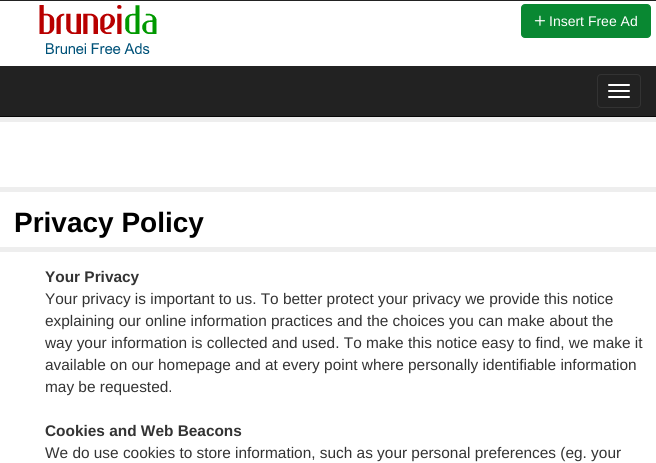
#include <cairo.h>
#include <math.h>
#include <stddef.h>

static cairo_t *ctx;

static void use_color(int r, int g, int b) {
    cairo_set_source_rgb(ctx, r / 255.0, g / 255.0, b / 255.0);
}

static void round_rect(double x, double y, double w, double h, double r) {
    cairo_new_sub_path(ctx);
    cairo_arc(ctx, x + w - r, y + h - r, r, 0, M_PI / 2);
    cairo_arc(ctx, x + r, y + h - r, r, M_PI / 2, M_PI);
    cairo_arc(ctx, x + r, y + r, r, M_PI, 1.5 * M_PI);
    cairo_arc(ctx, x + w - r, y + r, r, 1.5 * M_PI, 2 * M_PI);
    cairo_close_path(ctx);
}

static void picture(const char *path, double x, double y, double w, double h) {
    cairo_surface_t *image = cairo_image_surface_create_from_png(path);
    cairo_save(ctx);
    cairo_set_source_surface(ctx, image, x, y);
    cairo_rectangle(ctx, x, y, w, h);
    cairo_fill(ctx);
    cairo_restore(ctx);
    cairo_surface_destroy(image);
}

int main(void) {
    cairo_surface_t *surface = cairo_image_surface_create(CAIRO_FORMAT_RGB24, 656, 463);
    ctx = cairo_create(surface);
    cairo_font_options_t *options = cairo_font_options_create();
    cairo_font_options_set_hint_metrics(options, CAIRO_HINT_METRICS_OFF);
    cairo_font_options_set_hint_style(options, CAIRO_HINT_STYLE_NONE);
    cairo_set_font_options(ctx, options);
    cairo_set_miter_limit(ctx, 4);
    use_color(238, 238, 238);
    cairo_paint(ctx);
    use_color(34, 34, 34);
    cairo_rectangle(ctx, 0, 0, 656, 1);
    cairo_fill(ctx);
    use_color(255, 255, 255);
    cairo_rectangle(ctx, 0, 1, 656, 65);
    cairo_fill(ctx);
    picture("img1.png", 39, 5, 118, 49);
    use_color(9, 136, 50);
    round_rect(521.5, 4.5, 129, 33, 3.5);
    cairo_fill_preserve(ctx);
    cairo_set_line_width(ctx, 1);
    cairo_stroke(ctx);
    picture("img2.png", 534, 15, 11, 11);
    cairo_select_font_face(ctx, "Liberation Sans", CAIRO_FONT_SLANT_NORMAL, CAIRO_FONT_WEIGHT_NORMAL);
    cairo_set_font_size(ctx, 14);
    use_color(255, 255, 255);
    cairo_move_to(ctx, 549, 26);
    cairo_show_text(ctx, "Insert Free Ad");
    use_color(34, 34, 34);
    cairo_rectangle(ctx, 0, 66, 656, 50);
    cairo_fill(ctx);
    use_color(8, 8, 8);
    cairo_rectangle(ctx, 0, 116, 656, 1);
    cairo_fill(ctx);
    round_rect(597.5, 74.5, 43, 33, 3.5);
    use_color(51, 51, 51);
    cairo_stroke(ctx);
    use_color(255, 255, 255);
    round_rect(608, 84, 22, 2, 1);
    cairo_fill(ctx);
    round_rect(608, 90, 22, 2, 1);
    cairo_fill(ctx);
    round_rect(608, 96, 22, 2, 1);
    cairo_fill(ctx);
    cairo_rectangle(ctx, 0, 122, 656, 65);
    cairo_fill(ctx);
    cairo_rectangle(ctx, 0, 192, 656, 55);
    cairo_fill(ctx);
    cairo_select_font_face(ctx, "Liberation Sans", CAIRO_FONT_SLANT_NORMAL, CAIRO_FONT_WEIGHT_BOLD);
    cairo_set_font_size(ctx, 28);
    use_color(0, 0, 0);
    cairo_move_to(ctx, 14, 232);
    cairo_show_text(ctx, "Privacy Policy");
    use_color(255, 255, 255);
    cairo_rectangle(ctx, 0, 252, 656, 211);
    cairo_fill(ctx);
    cairo_set_font_size(ctx, 15.4);
    use_color(51, 51, 51);
    cairo_move_to(ctx, 45, 282);
    cairo_show_text(ctx, "Your Privacy");
    cairo_select_font_face(ctx, "Liberation Sans", CAIRO_FONT_SLANT_NORMAL, CAIRO_FONT_WEIGHT_NORMAL);
    cairo_move_to(ctx, 45, 304);
    cairo_show_text(ctx, "Your privacy is important to us. To better protect your privacy we provide this notice");
    cairo_move_to(ctx, 45, 326);
    cairo_show_text(ctx, "explaining our online information practices and the choices you can make about the");
    cairo_move_to(ctx, 45, 348);
    cairo_show_text(ctx, "way your information is collected and used. To make this notice easy to find, we make it");
    cairo_move_to(ctx, 45, 370);
    cairo_show_text(ctx, "available on our homepage and at every point where personally identifiable information");
    cairo_move_to(ctx, 45, 392);
    cairo_show_text(ctx, "may be requested.");
    cairo_select_font_face(ctx, "Liberation Sans", CAIRO_FONT_SLANT_NORMAL, CAIRO_FONT_WEIGHT_BOLD);
    cairo_move_to(ctx, 45, 436);
    cairo_show_text(ctx, "Cookies and Web Beacons");
    cairo_select_font_face(ctx, "Liberation Sans", CAIRO_FONT_SLANT_NORMAL, CAIRO_FONT_WEIGHT_NORMAL);
    cairo_move_to(ctx, 45, 458);
    cairo_show_text(ctx, "We do use cookies to store information, such as your personal preferences (eg. your");
    cairo_surface_write_to_png(surface, "result.png");
    cairo_font_options_destroy(options);
    cairo_destroy(ctx);
    cairo_surface_destroy(surface);
    return 0;
}
